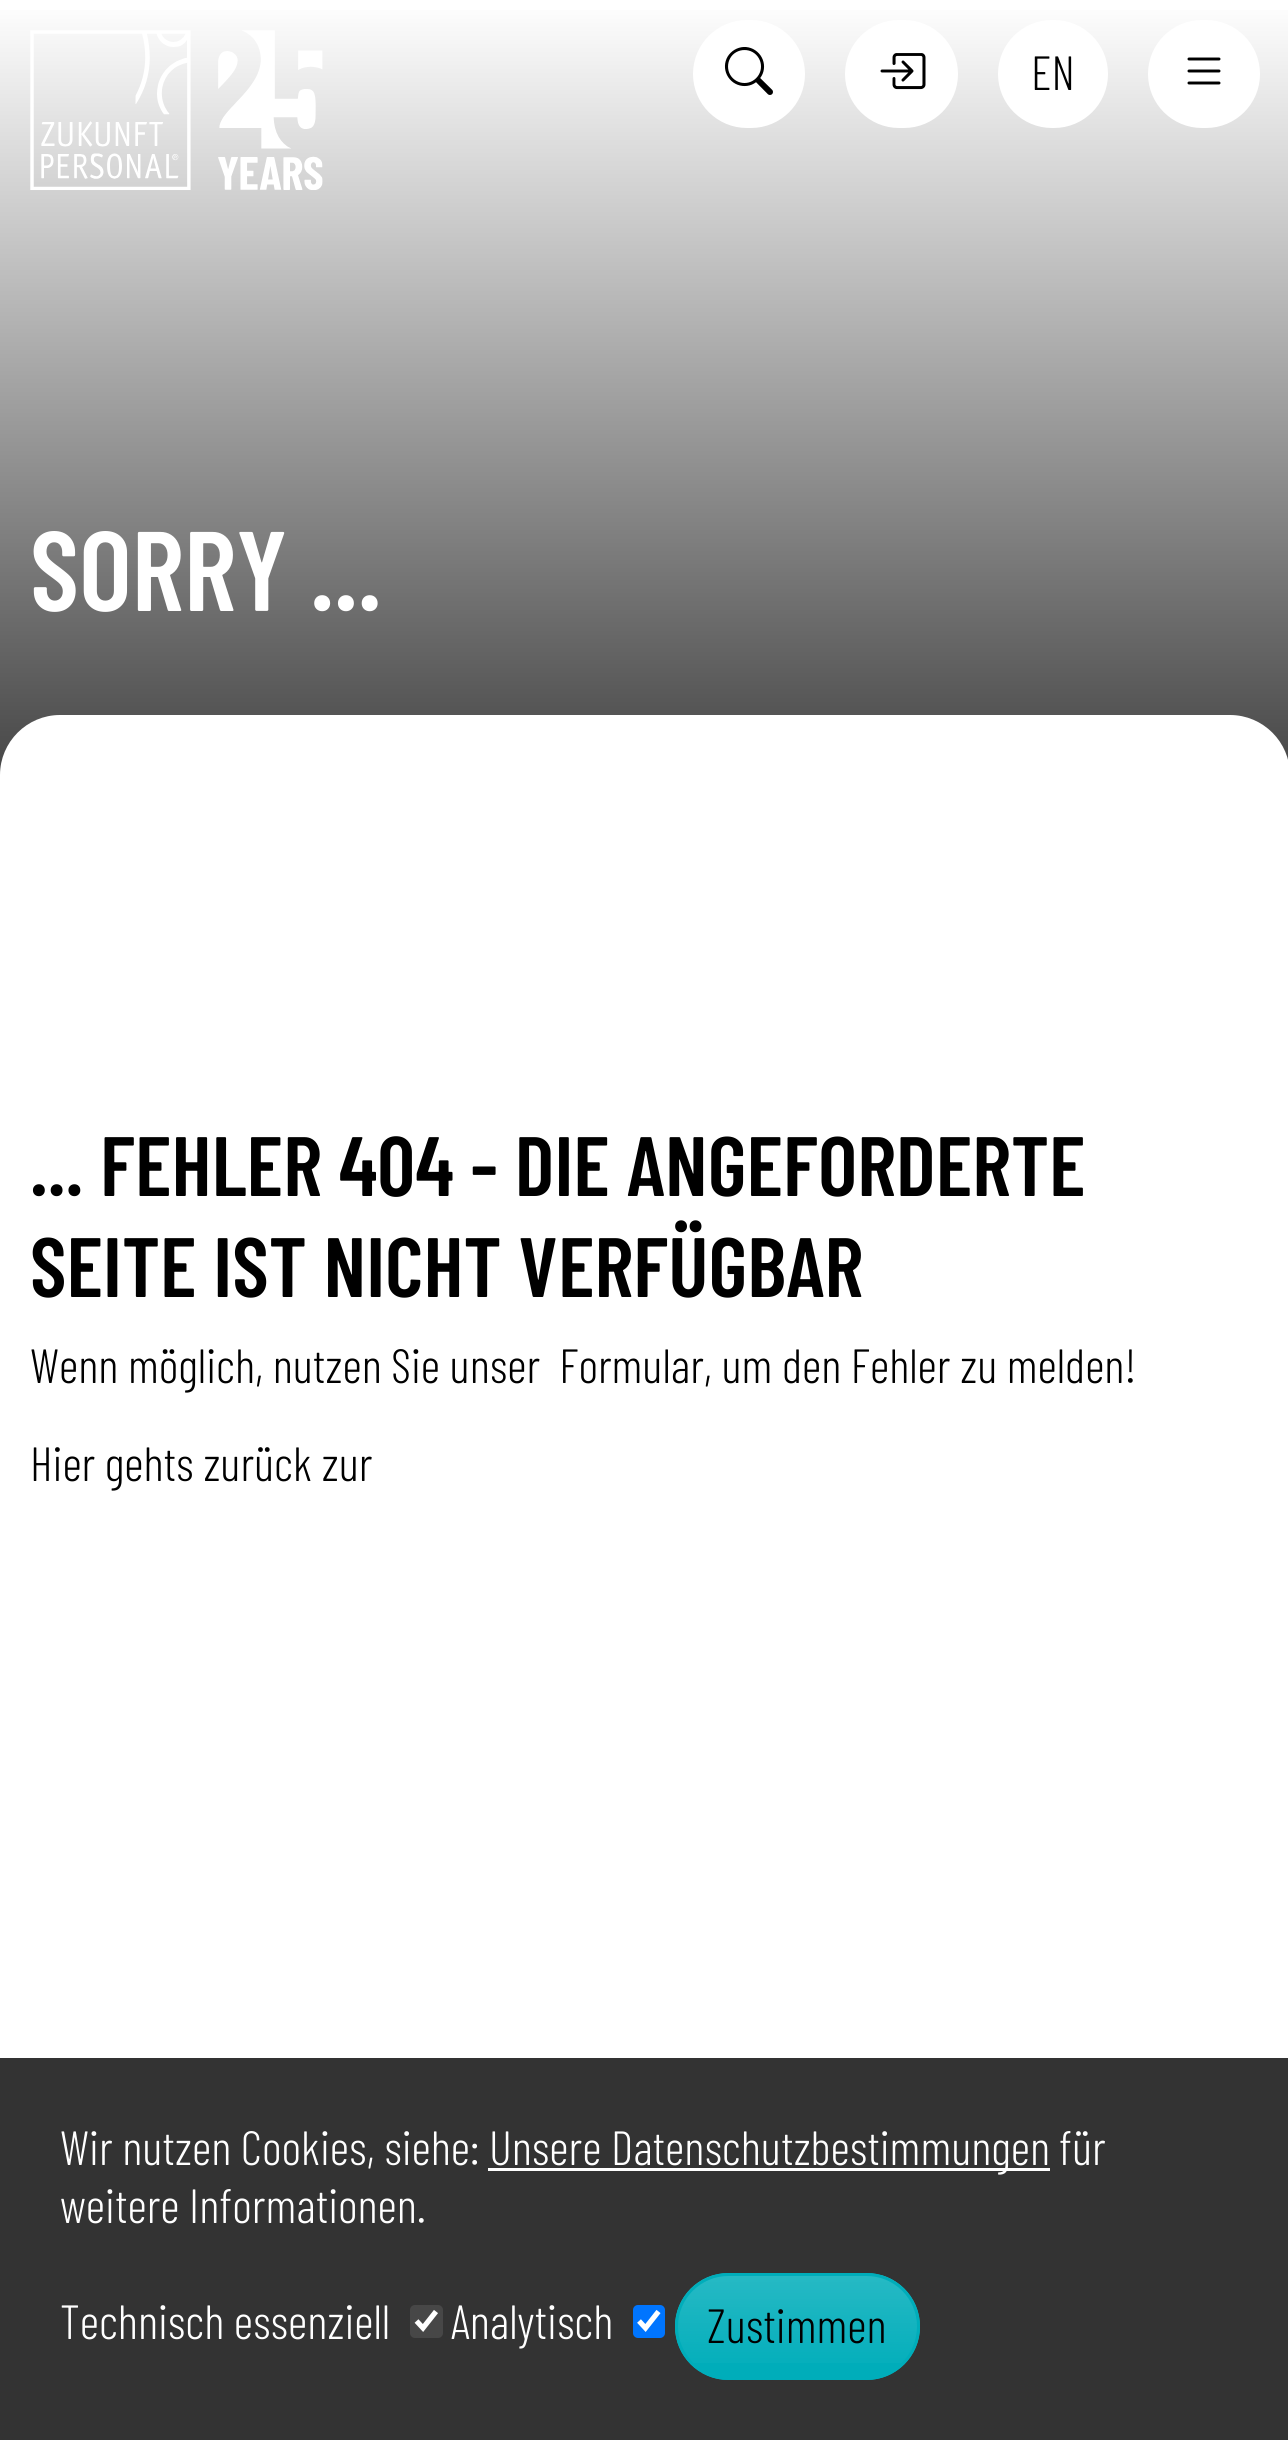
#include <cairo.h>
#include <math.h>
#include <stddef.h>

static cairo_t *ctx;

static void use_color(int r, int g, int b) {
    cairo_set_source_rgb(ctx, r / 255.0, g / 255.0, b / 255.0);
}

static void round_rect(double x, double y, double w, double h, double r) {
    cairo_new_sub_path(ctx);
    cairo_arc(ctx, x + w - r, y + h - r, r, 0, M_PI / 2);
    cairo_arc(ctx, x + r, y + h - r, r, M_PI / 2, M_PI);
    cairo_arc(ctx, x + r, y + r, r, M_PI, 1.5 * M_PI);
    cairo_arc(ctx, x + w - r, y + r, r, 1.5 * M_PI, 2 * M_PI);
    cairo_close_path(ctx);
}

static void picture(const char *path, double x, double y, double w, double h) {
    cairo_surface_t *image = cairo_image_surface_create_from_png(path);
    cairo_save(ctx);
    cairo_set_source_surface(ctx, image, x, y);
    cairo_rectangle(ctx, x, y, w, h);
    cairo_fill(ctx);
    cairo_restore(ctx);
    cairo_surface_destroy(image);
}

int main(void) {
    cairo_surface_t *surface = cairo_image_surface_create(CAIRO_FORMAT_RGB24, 1288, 2440);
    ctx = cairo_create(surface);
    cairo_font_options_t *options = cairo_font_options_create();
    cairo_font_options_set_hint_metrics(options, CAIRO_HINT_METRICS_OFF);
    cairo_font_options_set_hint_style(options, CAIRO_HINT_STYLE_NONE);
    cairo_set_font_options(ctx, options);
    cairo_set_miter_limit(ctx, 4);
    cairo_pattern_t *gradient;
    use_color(255, 255, 255);
    cairo_paint(ctx);
    gradient = cairo_pattern_create_linear(645, 855, 645, 0);
    cairo_pattern_add_color_stop_rgba(gradient, 0, 0.2, 0.2, 0.2, 1);
    cairo_pattern_add_color_stop_rgba(gradient, 1, 1, 1, 1, 1);
    cairo_set_source(ctx, gradient);
    cairo_pattern_destroy(gradient);
    cairo_rectangle(ctx, 0, 10, 1288, 765);
    cairo_fill(ctx);
    picture("img1.png", 30, 30, 293, 160);
    use_color(255, 255, 255);
    round_rect(694.5, 21.5, 109, 105, 52.5);
    cairo_fill_preserve(ctx);
    cairo_set_line_width(ctx, 3);
    cairo_stroke(ctx);
    picture("img2.png", 724, 47, 49, 48);
    round_rect(846.5, 21.5, 110, 105, 52.5);
    cairo_fill_preserve(ctx);
    cairo_stroke(ctx);
    picture("img3.png", 880, 53, 46, 37);
    round_rect(999.5, 21.5, 107, 105, 52.5);
    cairo_fill_preserve(ctx);
    cairo_stroke(ctx);
    cairo_select_font_face(ctx, "Barlow Condensed Light", CAIRO_FONT_SLANT_NORMAL, CAIRO_FONT_WEIGHT_NORMAL);
    cairo_set_font_size(ctx, 48);
    use_color(0, 0, 0);
    cairo_move_to(ctx, 1031, 90);
    cairo_show_text(ctx, "EN");
    use_color(255, 255, 255);
    round_rect(1149.5, 21.5, 109, 105, 52.5);
    cairo_fill_preserve(ctx);
    cairo_stroke(ctx);
    picture("img4.png", 1187, 57, 34, 28);
    cairo_select_font_face(ctx, "Barlow Condensed SemiBold", CAIRO_FONT_SLANT_NORMAL, CAIRO_FONT_WEIGHT_NORMAL);
    cairo_set_font_size(ctx, 113);
    cairo_move_to(ctx, 30, 611);
    cairo_show_text(ctx, "SORRY ...");
    cairo_new_path(ctx);
    cairo_move_to(ctx, 60, 715);
    cairo_line_to(ctx, 1230, 715);
    cairo_curve_to(ctx, 1263, 715, 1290, 742, 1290, 775);
    cairo_line_to(ctx, 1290, 855);
    cairo_line_to(ctx, 0, 855);
    cairo_line_to(ctx, 0, 775);
    cairo_curve_to(ctx, 0, 742, 27, 715, 60, 715);
    cairo_close_path(ctx);
    cairo_fill(ctx);
    cairo_set_font_size(ctx, 84.1);
    use_color(0, 0, 0);
    cairo_move_to(ctx, 30, 1196);
    cairo_show_text(ctx, "... FEHLER 404 - DIE ANGEFORDERTE");
    cairo_move_to(ctx, 30, 1297);
    cairo_show_text(ctx, "SEITE IST NICHT VERFÜGBAR");
    cairo_select_font_face(ctx, "Barlow Condensed Light", CAIRO_FONT_SLANT_NORMAL, CAIRO_FONT_WEIGHT_NORMAL);
    cairo_set_font_size(ctx, 48);
    cairo_move_to(ctx, 30, 1383);
    cairo_show_text(ctx, "Wenn möglich, nutzen Sie unser  Formular, um den Fehler zu melden!");
    cairo_move_to(ctx, 30, 1481);
    cairo_show_text(ctx, "Hier gehts zurück zur");
    use_color(51, 51, 51);
    cairo_rectangle(ctx, 0, 2058, 1288, 382);
    cairo_fill(ctx);
    use_color(255, 255, 255);
    cairo_move_to(ctx, 60, 2165);
    cairo_show_text(ctx, "Wir nutzen Cookies, siehe:");
    cairo_rectangle(ctx, 488, 2168, 562, 3);
    cairo_fill(ctx);
    cairo_move_to(ctx, 489, 2165);
    cairo_show_text(ctx, "Unsere Datenschutzbestimmungen");
    cairo_move_to(ctx, 1059, 2165);
    cairo_show_text(ctx, "für");
    cairo_move_to(ctx, 60, 2223);
    cairo_show_text(ctx, "weitere Informationen.");
    cairo_move_to(ctx, 60, 2339);
    cairo_show_text(ctx, "Technisch essenziell");
    use_color(71, 71, 71);
    round_rect(410, 2305, 33, 33, 5);
    cairo_fill(ctx);
    cairo_new_path(ctx);
    cairo_move_to(ctx, 416.5, 2321);
    cairo_line_to(ctx, 423, 2328);
    cairo_line_to(ctx, 436, 2311.5);
    use_color(255, 255, 255);
    cairo_set_line_width(ctx, 5.2);
    cairo_stroke(ctx);
    cairo_move_to(ctx, 451, 2339);
    cairo_show_text(ctx, "Analytisch");
    use_color(0, 117, 255);
    round_rect(633, 2305, 32, 33, 5);
    cairo_fill(ctx);
    cairo_new_path(ctx);
    cairo_move_to(ctx, 639, 2321);
    cairo_line_to(ctx, 645.5, 2328);
    cairo_line_to(ctx, 658.5, 2311.5);
    use_color(255, 255, 255);
    cairo_stroke(ctx);
    use_color(0, 173, 186);
    round_rect(675, 2273, 245, 107, 53.5);
    cairo_fill(ctx);
    cairo_save(ctx);
    round_rect(675, 2273, 245, 107, 53.5);
    cairo_clip(ctx);
    gradient = cairo_pattern_create_linear(798, 2275, 798, 2378);
    cairo_pattern_add_color_stop_rgba(gradient, 0, 1, 1, 1, 0.15);
    cairo_pattern_add_color_stop_rgba(gradient, 1, 1, 1, 1, 0);
    cairo_set_source(ctx, gradient);
    cairo_pattern_destroy(gradient);
    cairo_rectangle(ctx, 675, 2275, 245, 88);
    cairo_fill(ctx);
    cairo_restore(ctx);
    round_rect(676.5, 2274.5, 242, 104, 52);
    cairo_set_line_width(ctx, 3);
    cairo_stroke(ctx);
    use_color(0, 0, 0);
    cairo_move_to(ctx, 707, 2343);
    cairo_show_text(ctx, "Zustimmen");
    cairo_surface_write_to_png(surface, "result.png");
    cairo_font_options_destroy(options);
    cairo_destroy(ctx);
    cairo_surface_destroy(surface);
    return 0;
}
